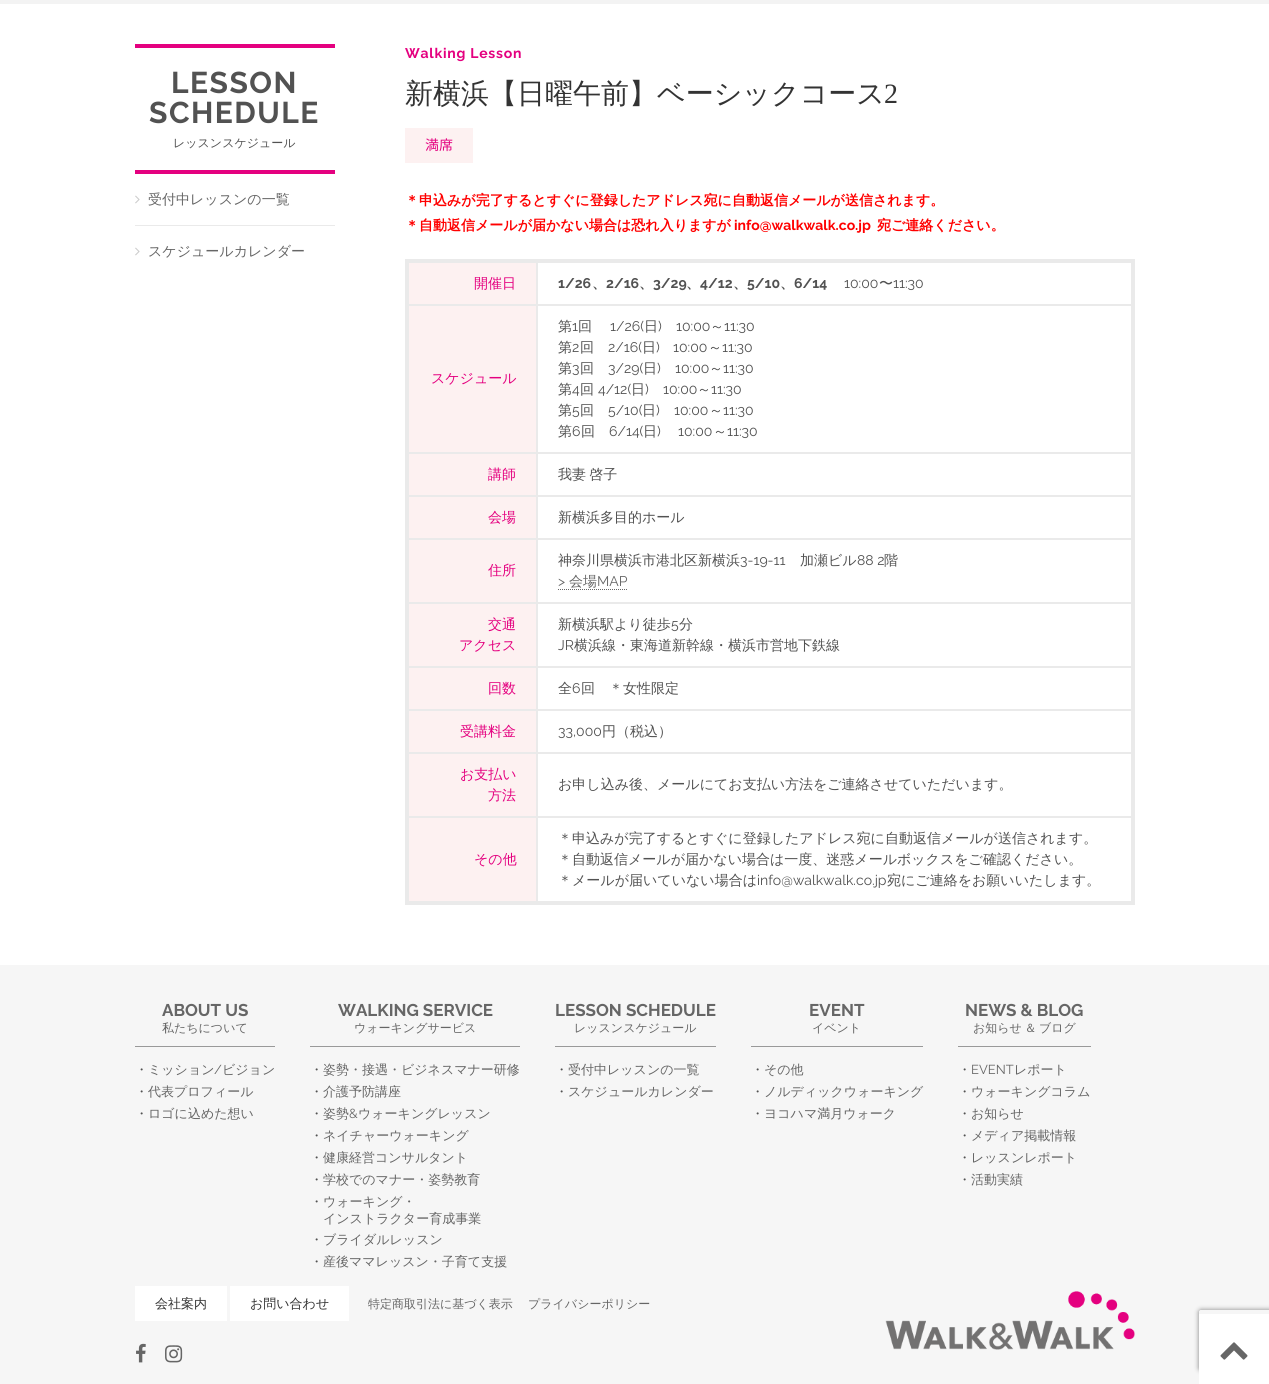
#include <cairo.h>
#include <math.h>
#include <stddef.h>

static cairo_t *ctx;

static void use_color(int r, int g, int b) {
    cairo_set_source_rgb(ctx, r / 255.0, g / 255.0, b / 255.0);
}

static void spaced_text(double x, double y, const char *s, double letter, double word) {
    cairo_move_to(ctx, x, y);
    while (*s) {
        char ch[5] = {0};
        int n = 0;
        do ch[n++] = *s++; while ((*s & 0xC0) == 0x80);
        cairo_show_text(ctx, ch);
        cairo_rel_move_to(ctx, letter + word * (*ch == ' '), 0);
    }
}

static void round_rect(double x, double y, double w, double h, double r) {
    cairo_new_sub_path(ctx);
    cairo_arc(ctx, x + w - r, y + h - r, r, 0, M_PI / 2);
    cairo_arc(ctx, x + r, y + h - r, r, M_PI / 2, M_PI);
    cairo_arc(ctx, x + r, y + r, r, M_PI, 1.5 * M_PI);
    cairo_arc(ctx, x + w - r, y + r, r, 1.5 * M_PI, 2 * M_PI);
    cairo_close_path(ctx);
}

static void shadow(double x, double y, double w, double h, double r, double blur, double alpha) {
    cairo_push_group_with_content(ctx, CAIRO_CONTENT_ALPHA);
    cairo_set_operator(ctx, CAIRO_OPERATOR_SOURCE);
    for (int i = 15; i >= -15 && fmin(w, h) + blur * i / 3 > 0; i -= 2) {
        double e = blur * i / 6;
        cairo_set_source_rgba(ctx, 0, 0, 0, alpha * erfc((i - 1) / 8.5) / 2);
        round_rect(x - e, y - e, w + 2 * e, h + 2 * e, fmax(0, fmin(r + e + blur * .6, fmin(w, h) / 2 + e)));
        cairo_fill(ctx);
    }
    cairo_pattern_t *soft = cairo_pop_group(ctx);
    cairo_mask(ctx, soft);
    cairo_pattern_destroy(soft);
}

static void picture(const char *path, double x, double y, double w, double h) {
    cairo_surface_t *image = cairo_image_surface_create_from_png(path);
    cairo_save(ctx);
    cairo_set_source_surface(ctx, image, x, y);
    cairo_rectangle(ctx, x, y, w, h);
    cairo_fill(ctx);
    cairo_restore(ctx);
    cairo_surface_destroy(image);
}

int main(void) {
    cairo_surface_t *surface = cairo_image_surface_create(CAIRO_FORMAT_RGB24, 1269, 1384);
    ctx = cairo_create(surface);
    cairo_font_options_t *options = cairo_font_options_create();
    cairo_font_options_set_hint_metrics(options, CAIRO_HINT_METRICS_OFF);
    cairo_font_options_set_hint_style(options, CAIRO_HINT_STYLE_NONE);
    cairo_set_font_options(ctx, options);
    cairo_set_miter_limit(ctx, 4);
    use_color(255, 255, 255);
    cairo_paint(ctx);
    use_color(243, 243, 243);
    cairo_rectangle(ctx, 0, 0, 1269, 4);
    cairo_fill(ctx);
    use_color(228, 0, 127);
    cairo_rectangle(ctx, 135, 44, 200, 4);
    cairo_fill(ctx);
    cairo_rectangle(ctx, 135, 170, 200, 4);
    cairo_fill(ctx);
    cairo_select_font_face(ctx, "Raleway", CAIRO_FONT_SLANT_NORMAL, CAIRO_FONT_WEIGHT_BOLD);
    cairo_set_font_size(ctx, 30);
    use_color(82, 82, 82);
    spaced_text(171, 93, "LESSON", 1.5, 0);
    spaced_text(149, 123, "SCHEDULE", 1.5, 0);
    cairo_select_font_face(ctx, "WenQuanYi Zen Hei Medium", CAIRO_FONT_SLANT_NORMAL, CAIRO_FONT_WEIGHT_NORMAL);
    cairo_set_font_size(ctx, 12);
    cairo_move_to(ctx, 173, 147);
    cairo_show_text(ctx, "レッスンスケジュール");
    use_color(234, 234, 234);
    cairo_rectangle(ctx, 135, 225, 200, 1);
    cairo_fill(ctx);
    picture("img1.png", 135, 195, 5, 9);
    cairo_set_font_size(ctx, 14);
    use_color(102, 102, 102);
    cairo_move_to(ctx, 148, 204);
    cairo_show_text(ctx, "受付中レッスンの一覧");
    picture("img1.png", 135, 247, 5, 9);
    cairo_move_to(ctx, 148, 256);
    cairo_show_text(ctx, "スケジュールカレンダー");
    cairo_select_font_face(ctx, "Raleway", CAIRO_FONT_SLANT_NORMAL, CAIRO_FONT_WEIGHT_BOLD);
    use_color(228, 0, 127);
    spaced_text(405, 58, "Walking Lesson", 0.75, 0);
    cairo_select_font_face(ctx, "WenQuanYi Zen Hei Medium", CAIRO_FONT_SLANT_NORMAL, CAIRO_FONT_WEIGHT_NORMAL);
    cairo_set_font_size(ctx, 28);
    use_color(51, 51, 51);
    cairo_move_to(ctx, 405, 103);
    cairo_show_text(ctx, "新横浜【日曜午前】ベーシックコース");
    cairo_select_font_face(ctx, "Liberation Serif", CAIRO_FONT_SLANT_NORMAL, CAIRO_FONT_WEIGHT_NORMAL);
    cairo_move_to(ctx, 884, 103);
    cairo_show_text(ctx, "2");
    use_color(253, 241, 241);
    cairo_rectangle(ctx, 405, 128, 68, 35);
    cairo_fill(ctx);
    cairo_select_font_face(ctx, "Noto Sans JP", CAIRO_FONT_SLANT_NORMAL, CAIRO_FONT_WEIGHT_NORMAL);
    cairo_set_font_size(ctx, 14);
    use_color(228, 0, 127);
    cairo_move_to(ctx, 425, 150);
    cairo_show_text(ctx, "満席");
    cairo_select_font_face(ctx, "WenQuanYi Zen Hei", CAIRO_FONT_SLANT_NORMAL, CAIRO_FONT_WEIGHT_BOLD);
    use_color(255, 0, 0);
    cairo_move_to(ctx, 405, 205);
    cairo_show_text(ctx, "＊申込みが完了するとすぐに登録したアドレス宛に自動返信メールが送信されます。");
    cairo_move_to(ctx, 405, 230);
    cairo_show_text(ctx, "＊自動返信メールが届かない場合は恐れ入りますが");
    cairo_select_font_face(ctx, "Raleway", CAIRO_FONT_SLANT_NORMAL, CAIRO_FONT_WEIGHT_BOLD);
    cairo_move_to(ctx, 734, 230);
    cairo_show_text(ctx, "info@walkwalk.co.jp");
    cairo_select_font_face(ctx, "WenQuanYi Zen Hei", CAIRO_FONT_SLANT_NORMAL, CAIRO_FONT_WEIGHT_BOLD);
    cairo_move_to(ctx, 877, 230);
    cairo_show_text(ctx, "宛ご連絡ください。");
    use_color(234, 234, 234);
    cairo_rectangle(ctx, 536, 304, 598, 2);
    cairo_fill(ctx);
    cairo_rectangle(ctx, 536, 452, 598, 2);
    cairo_fill(ctx);
    cairo_rectangle(ctx, 536, 495, 598, 2);
    cairo_fill(ctx);
    cairo_rectangle(ctx, 536, 538, 598, 2);
    cairo_fill(ctx);
    cairo_rectangle(ctx, 536, 602, 598, 2);
    cairo_fill(ctx);
    cairo_rectangle(ctx, 536, 666, 598, 2);
    cairo_fill(ctx);
    cairo_rectangle(ctx, 536, 709, 598, 2);
    cairo_fill(ctx);
    cairo_rectangle(ctx, 536, 752, 598, 2);
    cairo_fill(ctx);
    cairo_rectangle(ctx, 536, 816, 598, 2);
    cairo_fill(ctx);
    cairo_rectangle(ctx, 536, 816, 2, 88);
    cairo_fill(ctx);
    cairo_rectangle(ctx, 406, 816, 132, 2);
    cairo_fill(ctx);
    cairo_rectangle(ctx, 536, 752, 2, 66);
    cairo_fill(ctx);
    cairo_rectangle(ctx, 406, 752, 132, 2);
    cairo_fill(ctx);
    cairo_rectangle(ctx, 536, 709, 2, 45);
    cairo_fill(ctx);
    cairo_rectangle(ctx, 406, 709, 132, 2);
    cairo_fill(ctx);
    cairo_rectangle(ctx, 536, 666, 2, 45);
    cairo_fill(ctx);
    cairo_rectangle(ctx, 406, 666, 132, 2);
    cairo_fill(ctx);
    cairo_rectangle(ctx, 536, 602, 2, 66);
    cairo_fill(ctx);
    cairo_rectangle(ctx, 406, 602, 132, 2);
    cairo_fill(ctx);
    cairo_rectangle(ctx, 536, 538, 2, 66);
    cairo_fill(ctx);
    cairo_rectangle(ctx, 406, 538, 132, 2);
    cairo_fill(ctx);
    cairo_rectangle(ctx, 536, 495, 2, 45);
    cairo_fill(ctx);
    cairo_rectangle(ctx, 406, 495, 132, 2);
    cairo_fill(ctx);
    cairo_rectangle(ctx, 536, 452, 2, 45);
    cairo_fill(ctx);
    cairo_rectangle(ctx, 406, 452, 132, 2);
    cairo_fill(ctx);
    cairo_rectangle(ctx, 536, 304, 2, 150);
    cairo_fill(ctx);
    cairo_rectangle(ctx, 406, 304, 132, 2);
    cairo_fill(ctx);
    cairo_rectangle(ctx, 536, 260, 2, 46);
    cairo_fill(ctx);
    cairo_rectangle(ctx, 405, 259, 730, 4);
    cairo_fill(ctx);
    cairo_rectangle(ctx, 1131, 259, 4, 646);
    cairo_fill(ctx);
    cairo_rectangle(ctx, 405, 901, 730, 4);
    cairo_fill(ctx);
    cairo_rectangle(ctx, 405, 259, 4, 646);
    cairo_fill(ctx);
    use_color(253, 241, 241);
    cairo_rectangle(ctx, 409, 263, 127, 41);
    cairo_fill(ctx);
    cairo_select_font_face(ctx, "WenQuanYi Zen Hei Medium", CAIRO_FONT_SLANT_NORMAL, CAIRO_FONT_WEIGHT_NORMAL);
    use_color(228, 0, 127);
    cairo_move_to(ctx, 474, 288);
    cairo_show_text(ctx, "開催日");
    cairo_select_font_face(ctx, "Raleway", CAIRO_FONT_SLANT_NORMAL, CAIRO_FONT_WEIGHT_BOLD);
    use_color(82, 82, 82);
    cairo_move_to(ctx, 558, 288);
    cairo_show_text(ctx, "1/26");
    cairo_move_to(ctx, 606, 288);
    cairo_show_text(ctx, "2/16");
    cairo_move_to(ctx, 653, 288);
    cairo_show_text(ctx, "3/29");
    cairo_move_to(ctx, 700, 288);
    cairo_show_text(ctx, "4/12");
    cairo_move_to(ctx, 747, 288);
    cairo_show_text(ctx, "5/10");
    cairo_move_to(ctx, 794, 288);
    cairo_show_text(ctx, "6/14");
    cairo_select_font_face(ctx, "Raleway", CAIRO_FONT_SLANT_NORMAL, CAIRO_FONT_WEIGHT_NORMAL);
    cairo_move_to(ctx, 844, 288);
    cairo_show_text(ctx, "10:00");
    cairo_select_font_face(ctx, "WenQuanYi Zen Hei Medium", CAIRO_FONT_SLANT_NORMAL, CAIRO_FONT_WEIGHT_NORMAL);
    cairo_move_to(ctx, 879, 288);
    cairo_show_text(ctx, "〜");
    cairo_select_font_face(ctx, "Raleway", CAIRO_FONT_SLANT_NORMAL, CAIRO_FONT_WEIGHT_NORMAL);
    cairo_move_to(ctx, 893, 288);
    cairo_show_text(ctx, "11:30");
    cairo_select_font_face(ctx, "WenQuanYi Zen Hei", CAIRO_FONT_SLANT_NORMAL, CAIRO_FONT_WEIGHT_BOLD);
    cairo_move_to(ctx, 592, 288);
    cairo_show_text(ctx, "、");
    cairo_move_to(ctx, 639, 288);
    cairo_show_text(ctx, "、");
    cairo_move_to(ctx, 686, 288);
    cairo_show_text(ctx, "、");
    cairo_move_to(ctx, 733, 288);
    cairo_show_text(ctx, "、");
    cairo_move_to(ctx, 780, 288);
    cairo_show_text(ctx, "、");
    use_color(253, 241, 241);
    cairo_rectangle(ctx, 409, 306, 127, 146);
    cairo_fill(ctx);
    cairo_select_font_face(ctx, "WenQuanYi Zen Hei Medium", CAIRO_FONT_SLANT_NORMAL, CAIRO_FONT_WEIGHT_NORMAL);
    use_color(228, 0, 127);
    cairo_move_to(ctx, 431, 383);
    cairo_show_text(ctx, "スケジュール");
    use_color(82, 82, 82);
    cairo_move_to(ctx, 558, 331);
    cairo_show_text(ctx, "第");
    cairo_select_font_face(ctx, "Raleway", CAIRO_FONT_SLANT_NORMAL, CAIRO_FONT_WEIGHT_NORMAL);
    cairo_move_to(ctx, 572, 331);
    cairo_show_text(ctx, "1");
    cairo_select_font_face(ctx, "WenQuanYi Zen Hei Medium", CAIRO_FONT_SLANT_NORMAL, CAIRO_FONT_WEIGHT_NORMAL);
    cairo_move_to(ctx, 578, 331);
    cairo_show_text(ctx, "回");
    cairo_select_font_face(ctx, "Raleway", CAIRO_FONT_SLANT_NORMAL, CAIRO_FONT_WEIGHT_NORMAL);
    cairo_move_to(ctx, 610, 331);
    cairo_show_text(ctx, "1/26(");
    cairo_select_font_face(ctx, "WenQuanYi Zen Hei Medium", CAIRO_FONT_SLANT_NORMAL, CAIRO_FONT_WEIGHT_NORMAL);
    cairo_move_to(ctx, 644, 331);
    cairo_show_text(ctx, "日");
    cairo_select_font_face(ctx, "Raleway", CAIRO_FONT_SLANT_NORMAL, CAIRO_FONT_WEIGHT_NORMAL);
    cairo_move_to(ctx, 658, 331);
    cairo_show_text(ctx, ")");
    cairo_move_to(ctx, 676, 331);
    cairo_show_text(ctx, "10:00");
    cairo_select_font_face(ctx, "WenQuanYi Zen Hei Medium", CAIRO_FONT_SLANT_NORMAL, CAIRO_FONT_WEIGHT_NORMAL);
    cairo_move_to(ctx, 710, 331);
    cairo_show_text(ctx, "～");
    cairo_select_font_face(ctx, "Raleway", CAIRO_FONT_SLANT_NORMAL, CAIRO_FONT_WEIGHT_NORMAL);
    cairo_move_to(ctx, 724, 331);
    cairo_show_text(ctx, "11:30");
    cairo_select_font_face(ctx, "WenQuanYi Zen Hei Medium", CAIRO_FONT_SLANT_NORMAL, CAIRO_FONT_WEIGHT_NORMAL);
    cairo_move_to(ctx, 558, 352);
    cairo_show_text(ctx, "第");
    cairo_select_font_face(ctx, "Raleway", CAIRO_FONT_SLANT_NORMAL, CAIRO_FONT_WEIGHT_NORMAL);
    cairo_move_to(ctx, 572, 352);
    cairo_show_text(ctx, "2");
    cairo_select_font_face(ctx, "WenQuanYi Zen Hei Medium", CAIRO_FONT_SLANT_NORMAL, CAIRO_FONT_WEIGHT_NORMAL);
    cairo_move_to(ctx, 580, 352);
    cairo_show_text(ctx, "回");
    cairo_select_font_face(ctx, "Raleway", CAIRO_FONT_SLANT_NORMAL, CAIRO_FONT_WEIGHT_NORMAL);
    cairo_move_to(ctx, 608, 352);
    cairo_show_text(ctx, "2/16(");
    cairo_select_font_face(ctx, "WenQuanYi Zen Hei Medium", CAIRO_FONT_SLANT_NORMAL, CAIRO_FONT_WEIGHT_NORMAL);
    cairo_move_to(ctx, 642, 352);
    cairo_show_text(ctx, "日");
    cairo_select_font_face(ctx, "Raleway", CAIRO_FONT_SLANT_NORMAL, CAIRO_FONT_WEIGHT_NORMAL);
    cairo_move_to(ctx, 656, 352);
    cairo_show_text(ctx, ")");
    cairo_move_to(ctx, 673, 352);
    cairo_show_text(ctx, "10:00");
    cairo_select_font_face(ctx, "WenQuanYi Zen Hei Medium", CAIRO_FONT_SLANT_NORMAL, CAIRO_FONT_WEIGHT_NORMAL);
    cairo_move_to(ctx, 708, 352);
    cairo_show_text(ctx, "～");
    cairo_select_font_face(ctx, "Raleway", CAIRO_FONT_SLANT_NORMAL, CAIRO_FONT_WEIGHT_NORMAL);
    cairo_move_to(ctx, 722, 352);
    cairo_show_text(ctx, "11:30");
    cairo_select_font_face(ctx, "WenQuanYi Zen Hei Medium", CAIRO_FONT_SLANT_NORMAL, CAIRO_FONT_WEIGHT_NORMAL);
    cairo_move_to(ctx, 558, 373);
    cairo_show_text(ctx, "第");
    cairo_select_font_face(ctx, "Raleway", CAIRO_FONT_SLANT_NORMAL, CAIRO_FONT_WEIGHT_NORMAL);
    cairo_move_to(ctx, 572, 373);
    cairo_show_text(ctx, "3");
    cairo_select_font_face(ctx, "WenQuanYi Zen Hei Medium", CAIRO_FONT_SLANT_NORMAL, CAIRO_FONT_WEIGHT_NORMAL);
    cairo_move_to(ctx, 580, 373);
    cairo_show_text(ctx, "回");
    cairo_select_font_face(ctx, "Raleway", CAIRO_FONT_SLANT_NORMAL, CAIRO_FONT_WEIGHT_NORMAL);
    cairo_move_to(ctx, 608, 373);
    cairo_show_text(ctx, "3/29(");
    cairo_select_font_face(ctx, "WenQuanYi Zen Hei Medium", CAIRO_FONT_SLANT_NORMAL, CAIRO_FONT_WEIGHT_NORMAL);
    cairo_move_to(ctx, 643, 373);
    cairo_show_text(ctx, "日");
    cairo_select_font_face(ctx, "Raleway", CAIRO_FONT_SLANT_NORMAL, CAIRO_FONT_WEIGHT_NORMAL);
    cairo_move_to(ctx, 657, 373);
    cairo_show_text(ctx, ")");
    cairo_move_to(ctx, 675, 373);
    cairo_show_text(ctx, "10:00");
    cairo_select_font_face(ctx, "WenQuanYi Zen Hei Medium", CAIRO_FONT_SLANT_NORMAL, CAIRO_FONT_WEIGHT_NORMAL);
    cairo_move_to(ctx, 709, 373);
    cairo_show_text(ctx, "～");
    cairo_select_font_face(ctx, "Raleway", CAIRO_FONT_SLANT_NORMAL, CAIRO_FONT_WEIGHT_NORMAL);
    cairo_move_to(ctx, 723, 373);
    cairo_show_text(ctx, "11:30");
    cairo_select_font_face(ctx, "WenQuanYi Zen Hei Medium", CAIRO_FONT_SLANT_NORMAL, CAIRO_FONT_WEIGHT_NORMAL);
    cairo_move_to(ctx, 558, 394);
    cairo_show_text(ctx, "第");
    cairo_select_font_face(ctx, "Raleway", CAIRO_FONT_SLANT_NORMAL, CAIRO_FONT_WEIGHT_NORMAL);
    cairo_move_to(ctx, 572, 394);
    cairo_show_text(ctx, "4");
    cairo_select_font_face(ctx, "WenQuanYi Zen Hei Medium", CAIRO_FONT_SLANT_NORMAL, CAIRO_FONT_WEIGHT_NORMAL);
    cairo_move_to(ctx, 580, 394);
    cairo_show_text(ctx, "回");
    cairo_select_font_face(ctx, "Raleway", CAIRO_FONT_SLANT_NORMAL, CAIRO_FONT_WEIGHT_NORMAL);
    cairo_move_to(ctx, 598, 394);
    cairo_show_text(ctx, "4/12(");
    cairo_select_font_face(ctx, "WenQuanYi Zen Hei Medium", CAIRO_FONT_SLANT_NORMAL, CAIRO_FONT_WEIGHT_NORMAL);
    cairo_move_to(ctx, 631, 394);
    cairo_show_text(ctx, "日");
    cairo_select_font_face(ctx, "Raleway", CAIRO_FONT_SLANT_NORMAL, CAIRO_FONT_WEIGHT_NORMAL);
    cairo_move_to(ctx, 645, 394);
    cairo_show_text(ctx, ")");
    cairo_move_to(ctx, 663, 394);
    cairo_show_text(ctx, "10:00");
    cairo_select_font_face(ctx, "WenQuanYi Zen Hei Medium", CAIRO_FONT_SLANT_NORMAL, CAIRO_FONT_WEIGHT_NORMAL);
    cairo_move_to(ctx, 697, 394);
    cairo_show_text(ctx, "～");
    cairo_select_font_face(ctx, "Raleway", CAIRO_FONT_SLANT_NORMAL, CAIRO_FONT_WEIGHT_NORMAL);
    cairo_move_to(ctx, 711, 394);
    cairo_show_text(ctx, "11:30");
    cairo_select_font_face(ctx, "WenQuanYi Zen Hei Medium", CAIRO_FONT_SLANT_NORMAL, CAIRO_FONT_WEIGHT_NORMAL);
    cairo_move_to(ctx, 558, 415);
    cairo_show_text(ctx, "第");
    cairo_select_font_face(ctx, "Raleway", CAIRO_FONT_SLANT_NORMAL, CAIRO_FONT_WEIGHT_NORMAL);
    cairo_move_to(ctx, 572, 415);
    cairo_show_text(ctx, "5");
    cairo_select_font_face(ctx, "WenQuanYi Zen Hei Medium", CAIRO_FONT_SLANT_NORMAL, CAIRO_FONT_WEIGHT_NORMAL);
    cairo_move_to(ctx, 580, 415);
    cairo_show_text(ctx, "回");
    cairo_select_font_face(ctx, "Raleway", CAIRO_FONT_SLANT_NORMAL, CAIRO_FONT_WEIGHT_NORMAL);
    cairo_move_to(ctx, 608, 415);
    cairo_show_text(ctx, "5/10(");
    cairo_select_font_face(ctx, "WenQuanYi Zen Hei Medium", CAIRO_FONT_SLANT_NORMAL, CAIRO_FONT_WEIGHT_NORMAL);
    cairo_move_to(ctx, 642, 415);
    cairo_show_text(ctx, "日");
    cairo_select_font_face(ctx, "Raleway", CAIRO_FONT_SLANT_NORMAL, CAIRO_FONT_WEIGHT_NORMAL);
    cairo_move_to(ctx, 656, 415);
    cairo_show_text(ctx, ")");
    cairo_move_to(ctx, 674, 415);
    cairo_show_text(ctx, "10:00");
    cairo_select_font_face(ctx, "WenQuanYi Zen Hei Medium", CAIRO_FONT_SLANT_NORMAL, CAIRO_FONT_WEIGHT_NORMAL);
    cairo_move_to(ctx, 709, 415);
    cairo_show_text(ctx, "～");
    cairo_select_font_face(ctx, "Raleway", CAIRO_FONT_SLANT_NORMAL, CAIRO_FONT_WEIGHT_NORMAL);
    cairo_move_to(ctx, 723, 415);
    cairo_show_text(ctx, "11:30");
    cairo_select_font_face(ctx, "WenQuanYi Zen Hei Medium", CAIRO_FONT_SLANT_NORMAL, CAIRO_FONT_WEIGHT_NORMAL);
    cairo_move_to(ctx, 558, 436);
    cairo_show_text(ctx, "第");
    cairo_select_font_face(ctx, "Raleway", CAIRO_FONT_SLANT_NORMAL, CAIRO_FONT_WEIGHT_NORMAL);
    cairo_move_to(ctx, 572, 436);
    cairo_show_text(ctx, "6");
    cairo_select_font_face(ctx, "WenQuanYi Zen Hei Medium", CAIRO_FONT_SLANT_NORMAL, CAIRO_FONT_WEIGHT_NORMAL);
    cairo_move_to(ctx, 581, 436);
    cairo_show_text(ctx, "回");
    cairo_select_font_face(ctx, "Raleway", CAIRO_FONT_SLANT_NORMAL, CAIRO_FONT_WEIGHT_NORMAL);
    cairo_move_to(ctx, 609, 436);
    cairo_show_text(ctx, "6/14(");
    cairo_select_font_face(ctx, "WenQuanYi Zen Hei Medium", CAIRO_FONT_SLANT_NORMAL, CAIRO_FONT_WEIGHT_NORMAL);
    cairo_move_to(ctx, 643, 436);
    cairo_show_text(ctx, "日");
    cairo_select_font_face(ctx, "Raleway", CAIRO_FONT_SLANT_NORMAL, CAIRO_FONT_WEIGHT_NORMAL);
    cairo_move_to(ctx, 657, 436);
    cairo_show_text(ctx, ")");
    cairo_move_to(ctx, 678, 436);
    cairo_show_text(ctx, "10:00");
    cairo_select_font_face(ctx, "WenQuanYi Zen Hei Medium", CAIRO_FONT_SLANT_NORMAL, CAIRO_FONT_WEIGHT_NORMAL);
    cairo_move_to(ctx, 713, 436);
    cairo_show_text(ctx, "～");
    cairo_select_font_face(ctx, "Raleway", CAIRO_FONT_SLANT_NORMAL, CAIRO_FONT_WEIGHT_NORMAL);
    cairo_move_to(ctx, 727, 436);
    cairo_show_text(ctx, "11:30");
    use_color(253, 241, 241);
    cairo_rectangle(ctx, 409, 454, 127, 41);
    cairo_fill(ctx);
    cairo_select_font_face(ctx, "WenQuanYi Zen Hei Medium", CAIRO_FONT_SLANT_NORMAL, CAIRO_FONT_WEIGHT_NORMAL);
    use_color(228, 0, 127);
    cairo_move_to(ctx, 488, 479);
    cairo_show_text(ctx, "講師");
    use_color(82, 82, 82);
    spaced_text(558, 479, "我妻 啓子", 0, -1);
    use_color(253, 241, 241);
    cairo_rectangle(ctx, 409, 497, 127, 41);
    cairo_fill(ctx);
    use_color(228, 0, 127);
    cairo_move_to(ctx, 488, 522);
    cairo_show_text(ctx, "会場");
    use_color(82, 82, 82);
    cairo_move_to(ctx, 558, 522);
    cairo_show_text(ctx, "新横浜多目的ホール");
    use_color(253, 241, 241);
    cairo_rectangle(ctx, 409, 540, 127, 62);
    cairo_fill(ctx);
    use_color(228, 0, 127);
    cairo_move_to(ctx, 488, 575);
    cairo_show_text(ctx, "住所");
    use_color(82, 82, 82);
    cairo_move_to(ctx, 558, 565);
    cairo_show_text(ctx, "神奈川県横浜市港北区新横浜");
    cairo_select_font_face(ctx, "Raleway", CAIRO_FONT_SLANT_NORMAL, CAIRO_FONT_WEIGHT_NORMAL);
    cairo_move_to(ctx, 740, 565);
    cairo_show_text(ctx, "3-19-11");
    cairo_select_font_face(ctx, "WenQuanYi Zen Hei Medium", CAIRO_FONT_SLANT_NORMAL, CAIRO_FONT_WEIGHT_NORMAL);
    cairo_move_to(ctx, 800, 565);
    cairo_show_text(ctx, "加瀬ビル");
    cairo_select_font_face(ctx, "Raleway", CAIRO_FONT_SLANT_NORMAL, CAIRO_FONT_WEIGHT_NORMAL);
    cairo_move_to(ctx, 857, 565);
    cairo_show_text(ctx, "88 2");
    cairo_select_font_face(ctx, "WenQuanYi Zen Hei Medium", CAIRO_FONT_SLANT_NORMAL, CAIRO_FONT_WEIGHT_NORMAL);
    cairo_move_to(ctx, 884, 565);
    cairo_show_text(ctx, "階");
    cairo_select_font_face(ctx, "Raleway", CAIRO_FONT_SLANT_NORMAL, CAIRO_FONT_WEIGHT_NORMAL);
    use_color(102, 102, 102);
    cairo_move_to(ctx, 558, 586);
    cairo_show_text(ctx, ">");
    cairo_new_path(ctx);
    cairo_move_to(ctx, 558, 589.5);
    cairo_line_to(ctx, 628, 589.5);
    cairo_set_line_width(ctx, 1);
    cairo_set_dash(ctx, (double[]){1, 1}, 2, 0);
    cairo_stroke(ctx);
    cairo_select_font_face(ctx, "WenQuanYi Zen Hei Medium", CAIRO_FONT_SLANT_NORMAL, CAIRO_FONT_WEIGHT_NORMAL);
    cairo_move_to(ctx, 569, 586);
    cairo_show_text(ctx, "会場");
    cairo_select_font_face(ctx, "Raleway", CAIRO_FONT_SLANT_NORMAL, CAIRO_FONT_WEIGHT_NORMAL);
    cairo_move_to(ctx, 597, 586);
    cairo_show_text(ctx, "MAP");
    use_color(253, 241, 241);
    cairo_rectangle(ctx, 409, 604, 127, 62);
    cairo_fill(ctx);
    cairo_select_font_face(ctx, "WenQuanYi Zen Hei Medium", CAIRO_FONT_SLANT_NORMAL, CAIRO_FONT_WEIGHT_NORMAL);
    use_color(228, 0, 127);
    cairo_move_to(ctx, 488, 629);
    cairo_show_text(ctx, "交通");
    cairo_move_to(ctx, 459, 650);
    cairo_show_text(ctx, "アクセス");
    use_color(82, 82, 82);
    cairo_move_to(ctx, 558, 629);
    cairo_show_text(ctx, "新横浜駅より徒歩");
    cairo_select_font_face(ctx, "Raleway", CAIRO_FONT_SLANT_NORMAL, CAIRO_FONT_WEIGHT_NORMAL);
    cairo_move_to(ctx, 671, 629);
    cairo_show_text(ctx, "5");
    cairo_select_font_face(ctx, "WenQuanYi Zen Hei Medium", CAIRO_FONT_SLANT_NORMAL, CAIRO_FONT_WEIGHT_NORMAL);
    cairo_move_to(ctx, 679, 629);
    cairo_show_text(ctx, "分");
    cairo_select_font_face(ctx, "Raleway", CAIRO_FONT_SLANT_NORMAL, CAIRO_FONT_WEIGHT_NORMAL);
    cairo_move_to(ctx, 558, 650);
    cairo_show_text(ctx, "JR");
    cairo_select_font_face(ctx, "WenQuanYi Zen Hei Medium", CAIRO_FONT_SLANT_NORMAL, CAIRO_FONT_WEIGHT_NORMAL);
    cairo_move_to(ctx, 574, 650);
    cairo_show_text(ctx, "横浜線・東海道新幹線・横浜市営地下鉄線");
    use_color(253, 241, 241);
    cairo_rectangle(ctx, 409, 668, 127, 41);
    cairo_fill(ctx);
    use_color(228, 0, 127);
    cairo_move_to(ctx, 488, 693);
    cairo_show_text(ctx, "回数");
    use_color(82, 82, 82);
    cairo_move_to(ctx, 558, 693);
    cairo_show_text(ctx, "全");
    cairo_select_font_face(ctx, "Raleway", CAIRO_FONT_SLANT_NORMAL, CAIRO_FONT_WEIGHT_NORMAL);
    cairo_move_to(ctx, 572, 693);
    cairo_show_text(ctx, "6");
    cairo_select_font_face(ctx, "WenQuanYi Zen Hei Medium", CAIRO_FONT_SLANT_NORMAL, CAIRO_FONT_WEIGHT_NORMAL);
    cairo_move_to(ctx, 581, 693);
    cairo_show_text(ctx, "回　＊女性限定");
    use_color(253, 241, 241);
    cairo_rectangle(ctx, 409, 711, 127, 41);
    cairo_fill(ctx);
    use_color(228, 0, 127);
    cairo_move_to(ctx, 460, 736);
    cairo_show_text(ctx, "受講料金");
    cairo_select_font_face(ctx, "Raleway", CAIRO_FONT_SLANT_NORMAL, CAIRO_FONT_WEIGHT_NORMAL);
    use_color(82, 82, 82);
    cairo_move_to(ctx, 558, 736);
    cairo_show_text(ctx, "33,000");
    cairo_select_font_face(ctx, "WenQuanYi Zen Hei Medium", CAIRO_FONT_SLANT_NORMAL, CAIRO_FONT_WEIGHT_NORMAL);
    cairo_move_to(ctx, 602, 736);
    cairo_show_text(ctx, "円（税込）");
    use_color(253, 241, 241);
    cairo_rectangle(ctx, 409, 754, 127, 62);
    cairo_fill(ctx);
    use_color(228, 0, 127);
    cairo_move_to(ctx, 460, 779);
    cairo_show_text(ctx, "お支払い");
    cairo_move_to(ctx, 488, 800);
    cairo_show_text(ctx, "方法");
    use_color(82, 82, 82);
    cairo_move_to(ctx, 558, 789);
    cairo_show_text(ctx, "お申し込み後、メールにてお支払い方法をご連絡させていただいます。");
    use_color(253, 241, 241);
    cairo_rectangle(ctx, 409, 818, 127, 83);
    cairo_fill(ctx);
    use_color(228, 0, 127);
    cairo_move_to(ctx, 474, 864);
    cairo_show_text(ctx, "その他");
    use_color(82, 82, 82);
    cairo_move_to(ctx, 558, 843);
    cairo_show_text(ctx, "＊申込みが完了するとすぐに登録したアドレス宛に自動返信メールが送信されます。");
    cairo_move_to(ctx, 558, 864);
    cairo_show_text(ctx, "＊自動返信メールが届かない場合は一度、迷惑メールボックスをご確認ください。");
    cairo_move_to(ctx, 558, 885);
    cairo_show_text(ctx, "＊メールが届いていない場合は");
    cairo_select_font_face(ctx, "Raleway", CAIRO_FONT_SLANT_NORMAL, CAIRO_FONT_WEIGHT_NORMAL);
    cairo_move_to(ctx, 757, 885);
    cairo_show_text(ctx, "info@walkwalk.co.jp");
    cairo_select_font_face(ctx, "WenQuanYi Zen Hei Medium", CAIRO_FONT_SLANT_NORMAL, CAIRO_FONT_WEIGHT_NORMAL);
    cairo_move_to(ctx, 887, 885);
    cairo_show_text(ctx, "宛にご連絡をお願いいたします。");
    use_color(246, 246, 246);
    cairo_rectangle(ctx, 0, 965, 1269, 419);
    cairo_fill(ctx);
    use_color(153, 153, 153);
    cairo_rectangle(ctx, 135, 1046, 140, 1);
    cairo_fill(ctx);
    cairo_select_font_face(ctx, "Raleway", CAIRO_FONT_SLANT_NORMAL, CAIRO_FONT_WEIGHT_BOLD);
    cairo_set_font_size(ctx, 17);
    use_color(102, 102, 102);
    cairo_move_to(ctx, 162, 1016);
    cairo_show_text(ctx, "ABOUT US");
    cairo_select_font_face(ctx, "WenQuanYi Zen Hei Medium", CAIRO_FONT_SLANT_NORMAL, CAIRO_FONT_WEIGHT_NORMAL);
    cairo_set_font_size(ctx, 12);
    cairo_move_to(ctx, 162, 1032);
    cairo_show_text(ctx, "私たちについて");
    cairo_set_font_size(ctx, 13);
    use_color(82, 82, 82);
    cairo_move_to(ctx, 135, 1074);
    cairo_show_text(ctx, "・");
    use_color(102, 102, 102);
    cairo_move_to(ctx, 148, 1074);
    cairo_show_text(ctx, "ミッション");
    cairo_select_font_face(ctx, "Raleway", CAIRO_FONT_SLANT_NORMAL, CAIRO_FONT_WEIGHT_NORMAL);
    cairo_move_to(ctx, 214, 1074);
    cairo_show_text(ctx, "/");
    cairo_select_font_face(ctx, "WenQuanYi Zen Hei Medium", CAIRO_FONT_SLANT_NORMAL, CAIRO_FONT_WEIGHT_NORMAL);
    cairo_move_to(ctx, 222, 1074);
    cairo_show_text(ctx, "ビジョン");
    use_color(82, 82, 82);
    cairo_move_to(ctx, 135, 1096);
    cairo_show_text(ctx, "・");
    use_color(102, 102, 102);
    cairo_move_to(ctx, 148, 1096);
    cairo_show_text(ctx, "代表プロフィール");
    use_color(82, 82, 82);
    cairo_move_to(ctx, 135, 1118);
    cairo_show_text(ctx, "・");
    use_color(102, 102, 102);
    cairo_move_to(ctx, 148, 1118);
    cairo_show_text(ctx, "ロゴに込めた想い");
    use_color(153, 153, 153);
    cairo_rectangle(ctx, 310, 1046, 210, 1);
    cairo_fill(ctx);
    cairo_select_font_face(ctx, "Raleway", CAIRO_FONT_SLANT_NORMAL, CAIRO_FONT_WEIGHT_BOLD);
    cairo_set_font_size(ctx, 17);
    use_color(102, 102, 102);
    cairo_move_to(ctx, 338, 1016);
    cairo_show_text(ctx, "WALKING SERVICE");
    cairo_select_font_face(ctx, "WenQuanYi Zen Hei Medium", CAIRO_FONT_SLANT_NORMAL, CAIRO_FONT_WEIGHT_NORMAL);
    cairo_set_font_size(ctx, 12);
    cairo_move_to(ctx, 354, 1032);
    cairo_show_text(ctx, "ウォーキングサービス");
    cairo_set_font_size(ctx, 13);
    use_color(82, 82, 82);
    cairo_move_to(ctx, 310, 1074);
    cairo_show_text(ctx, "・");
    use_color(102, 102, 102);
    cairo_move_to(ctx, 323, 1074);
    cairo_show_text(ctx, "姿勢・接遇・ビジネスマナー研修");
    use_color(82, 82, 82);
    cairo_move_to(ctx, 310, 1096);
    cairo_show_text(ctx, "・");
    use_color(102, 102, 102);
    cairo_move_to(ctx, 323, 1096);
    cairo_show_text(ctx, "介護予防講座");
    use_color(82, 82, 82);
    cairo_move_to(ctx, 310, 1118);
    cairo_show_text(ctx, "・");
    use_color(102, 102, 102);
    cairo_move_to(ctx, 323, 1118);
    cairo_show_text(ctx, "姿勢");
    cairo_select_font_face(ctx, "Raleway", CAIRO_FONT_SLANT_NORMAL, CAIRO_FONT_WEIGHT_NORMAL);
    cairo_move_to(ctx, 349, 1118);
    cairo_show_text(ctx, "&");
    cairo_select_font_face(ctx, "WenQuanYi Zen Hei Medium", CAIRO_FONT_SLANT_NORMAL, CAIRO_FONT_WEIGHT_NORMAL);
    cairo_move_to(ctx, 358, 1118);
    cairo_show_text(ctx, "ウォーキングレッスン");
    use_color(82, 82, 82);
    cairo_move_to(ctx, 310, 1140);
    cairo_show_text(ctx, "・");
    use_color(102, 102, 102);
    cairo_move_to(ctx, 323, 1140);
    cairo_show_text(ctx, "ネイチャーウォーキング");
    use_color(82, 82, 82);
    cairo_move_to(ctx, 310, 1162);
    cairo_show_text(ctx, "・");
    use_color(102, 102, 102);
    cairo_move_to(ctx, 323, 1162);
    cairo_show_text(ctx, "健康経営コンサルタント");
    use_color(82, 82, 82);
    cairo_move_to(ctx, 310, 1184);
    cairo_show_text(ctx, "・");
    use_color(102, 102, 102);
    cairo_move_to(ctx, 323, 1184);
    cairo_show_text(ctx, "学校でのマナー・姿勢教育");
    use_color(82, 82, 82);
    cairo_move_to(ctx, 310, 1206);
    cairo_show_text(ctx, "・");
    use_color(102, 102, 102);
    cairo_move_to(ctx, 323, 1206);
    cairo_show_text(ctx, "ウォーキング・");
    cairo_move_to(ctx, 323, 1223);
    cairo_show_text(ctx, "インストラクター育成事業");
    use_color(82, 82, 82);
    cairo_move_to(ctx, 310, 1244);
    cairo_show_text(ctx, "・");
    use_color(102, 102, 102);
    cairo_move_to(ctx, 323, 1244);
    cairo_show_text(ctx, "ブライダルレッスン");
    use_color(82, 82, 82);
    cairo_move_to(ctx, 310, 1266);
    cairo_show_text(ctx, "・");
    use_color(102, 102, 102);
    cairo_move_to(ctx, 323, 1266);
    cairo_show_text(ctx, "産後ママレッスン・子育て支援");
    use_color(153, 153, 153);
    cairo_rectangle(ctx, 555, 1046, 161, 1);
    cairo_fill(ctx);
    cairo_select_font_face(ctx, "Raleway", CAIRO_FONT_SLANT_NORMAL, CAIRO_FONT_WEIGHT_BOLD);
    cairo_set_font_size(ctx, 17);
    use_color(102, 102, 102);
    cairo_move_to(ctx, 555, 1016);
    cairo_show_text(ctx, "LESSON SCHEDULE");
    cairo_select_font_face(ctx, "WenQuanYi Zen Hei Medium", CAIRO_FONT_SLANT_NORMAL, CAIRO_FONT_WEIGHT_NORMAL);
    cairo_set_font_size(ctx, 12);
    cairo_move_to(ctx, 574, 1032);
    cairo_show_text(ctx, "レッスンスケジュール");
    cairo_set_font_size(ctx, 13);
    use_color(82, 82, 82);
    cairo_move_to(ctx, 555, 1074);
    cairo_show_text(ctx, "・");
    use_color(102, 102, 102);
    cairo_move_to(ctx, 568, 1074);
    cairo_show_text(ctx, "受付中レッスンの一覧");
    use_color(82, 82, 82);
    cairo_move_to(ctx, 555, 1096);
    cairo_show_text(ctx, "・");
    use_color(102, 102, 102);
    cairo_move_to(ctx, 568, 1096);
    cairo_show_text(ctx, "スケジュールカレンダー");
    use_color(153, 153, 153);
    cairo_rectangle(ctx, 751, 1046, 172, 1);
    cairo_fill(ctx);
    cairo_select_font_face(ctx, "Raleway", CAIRO_FONT_SLANT_NORMAL, CAIRO_FONT_WEIGHT_BOLD);
    cairo_set_font_size(ctx, 17);
    use_color(102, 102, 102);
    cairo_move_to(ctx, 809, 1016);
    cairo_show_text(ctx, "EVENT");
    cairo_select_font_face(ctx, "WenQuanYi Zen Hei Medium", CAIRO_FONT_SLANT_NORMAL, CAIRO_FONT_WEIGHT_NORMAL);
    cairo_set_font_size(ctx, 12);
    cairo_move_to(ctx, 812, 1032);
    cairo_show_text(ctx, "イベント");
    cairo_set_font_size(ctx, 13);
    use_color(82, 82, 82);
    cairo_move_to(ctx, 751, 1074);
    cairo_show_text(ctx, "・");
    use_color(102, 102, 102);
    cairo_move_to(ctx, 764, 1074);
    cairo_show_text(ctx, "その他");
    use_color(82, 82, 82);
    cairo_move_to(ctx, 751, 1096);
    cairo_show_text(ctx, "・");
    use_color(102, 102, 102);
    cairo_move_to(ctx, 764, 1096);
    cairo_show_text(ctx, "ノルディックウォーキング");
    use_color(82, 82, 82);
    cairo_move_to(ctx, 751, 1118);
    cairo_show_text(ctx, "・");
    use_color(102, 102, 102);
    cairo_move_to(ctx, 764, 1118);
    cairo_show_text(ctx, "ヨコハマ満月ウォーク");
    use_color(153, 153, 153);
    cairo_rectangle(ctx, 958, 1046, 133, 1);
    cairo_fill(ctx);
    cairo_select_font_face(ctx, "Raleway", CAIRO_FONT_SLANT_NORMAL, CAIRO_FONT_WEIGHT_BOLD);
    cairo_set_font_size(ctx, 17);
    use_color(102, 102, 102);
    cairo_move_to(ctx, 965, 1016);
    cairo_show_text(ctx, "NEWS & BLOG");
    cairo_select_font_face(ctx, "WenQuanYi Zen Hei Medium", CAIRO_FONT_SLANT_NORMAL, CAIRO_FONT_WEIGHT_NORMAL);
    cairo_set_font_size(ctx, 12);
    spaced_text(973, 1032, "お知らせ ＆ ブログ", 0, -1);
    cairo_set_font_size(ctx, 13);
    use_color(82, 82, 82);
    cairo_move_to(ctx, 958, 1074);
    cairo_show_text(ctx, "・");
    cairo_select_font_face(ctx, "Raleway", CAIRO_FONT_SLANT_NORMAL, CAIRO_FONT_WEIGHT_NORMAL);
    use_color(102, 102, 102);
    cairo_move_to(ctx, 971, 1074);
    cairo_show_text(ctx, "EVENT");
    cairo_select_font_face(ctx, "WenQuanYi Zen Hei Medium", CAIRO_FONT_SLANT_NORMAL, CAIRO_FONT_WEIGHT_NORMAL);
    cairo_move_to(ctx, 1014, 1074);
    cairo_show_text(ctx, "レポート");
    use_color(82, 82, 82);
    cairo_move_to(ctx, 958, 1096);
    cairo_show_text(ctx, "・");
    use_color(102, 102, 102);
    cairo_move_to(ctx, 971, 1096);
    cairo_show_text(ctx, "ウォーキングコラム");
    use_color(82, 82, 82);
    cairo_move_to(ctx, 958, 1118);
    cairo_show_text(ctx, "・");
    use_color(102, 102, 102);
    cairo_move_to(ctx, 971, 1118);
    cairo_show_text(ctx, "お知らせ");
    use_color(82, 82, 82);
    cairo_move_to(ctx, 958, 1140);
    cairo_show_text(ctx, "・");
    use_color(102, 102, 102);
    cairo_move_to(ctx, 971, 1140);
    cairo_show_text(ctx, "メディア掲載情報");
    use_color(82, 82, 82);
    cairo_move_to(ctx, 958, 1162);
    cairo_show_text(ctx, "・");
    use_color(102, 102, 102);
    cairo_move_to(ctx, 971, 1162);
    cairo_show_text(ctx, "レッスンレポート");
    use_color(82, 82, 82);
    cairo_move_to(ctx, 958, 1184);
    cairo_show_text(ctx, "・");
    use_color(102, 102, 102);
    cairo_move_to(ctx, 971, 1184);
    cairo_show_text(ctx, "活動実績");
    use_color(255, 255, 255);
    cairo_rectangle(ctx, 135, 1286, 92, 35);
    cairo_fill(ctx);
    use_color(51, 51, 51);
    cairo_move_to(ctx, 155, 1308);
    cairo_show_text(ctx, "会社案内");
    use_color(255, 255, 255);
    cairo_rectangle(ctx, 230, 1286, 119, 35);
    cairo_fill(ctx);
    use_color(51, 51, 51);
    cairo_move_to(ctx, 250, 1308);
    cairo_show_text(ctx, "お問い合わせ");
    cairo_set_font_size(ctx, 12);
    use_color(102, 102, 102);
    cairo_move_to(ctx, 368, 1308);
    cairo_show_text(ctx, "特定商取引法に基づく表示");
    cairo_move_to(ctx, 528, 1308);
    cairo_show_text(ctx, "プライバシーポリシー");
    picture("img2.png", 136, 1343, 10, 20);
    picture("img3.png", 165, 1345, 18, 18);
    picture("img4.png", 885, 1291, 250, 59);
    cairo_save(ctx);
    cairo_set_fill_rule(ctx, CAIRO_FILL_RULE_EVEN_ODD);
    cairo_new_path(ctx);
    cairo_move_to(ctx, 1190, 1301);
    cairo_line_to(ctx, 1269, 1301);
    cairo_line_to(ctx, 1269, 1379);
    cairo_line_to(ctx, 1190, 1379);
    cairo_close_path(ctx);
    cairo_move_to(ctx, 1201, 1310);
    cairo_line_to(ctx, 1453, 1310);
    cairo_curve_to(ctx, 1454, 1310, 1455, 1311, 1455, 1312);
    cairo_line_to(ctx, 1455, 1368);
    cairo_curve_to(ctx, 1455, 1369, 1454, 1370, 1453, 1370);
    cairo_line_to(ctx, 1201, 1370);
    cairo_curve_to(ctx, 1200, 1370, 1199, 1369, 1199, 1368);
    cairo_line_to(ctx, 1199, 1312);
    cairo_curve_to(ctx, 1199, 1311, 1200, 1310, 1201, 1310);
    cairo_close_path(ctx);
    cairo_clip(ctx);
    use_color(128, 128, 128);
    shadow(1199, 1310, 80, 60, 2, 2.5, 1);
    cairo_restore(ctx);
    use_color(255, 255, 255);
    cairo_rectangle(ctx, 1199, 1314, 70, 70);
    cairo_fill(ctx);
    picture("img5.png", 1220, 1342, 28, 18);
    cairo_surface_write_to_png(surface, "result.png");
    cairo_font_options_destroy(options);
    cairo_destroy(ctx);
    cairo_surface_destroy(surface);
    return 0;
}
